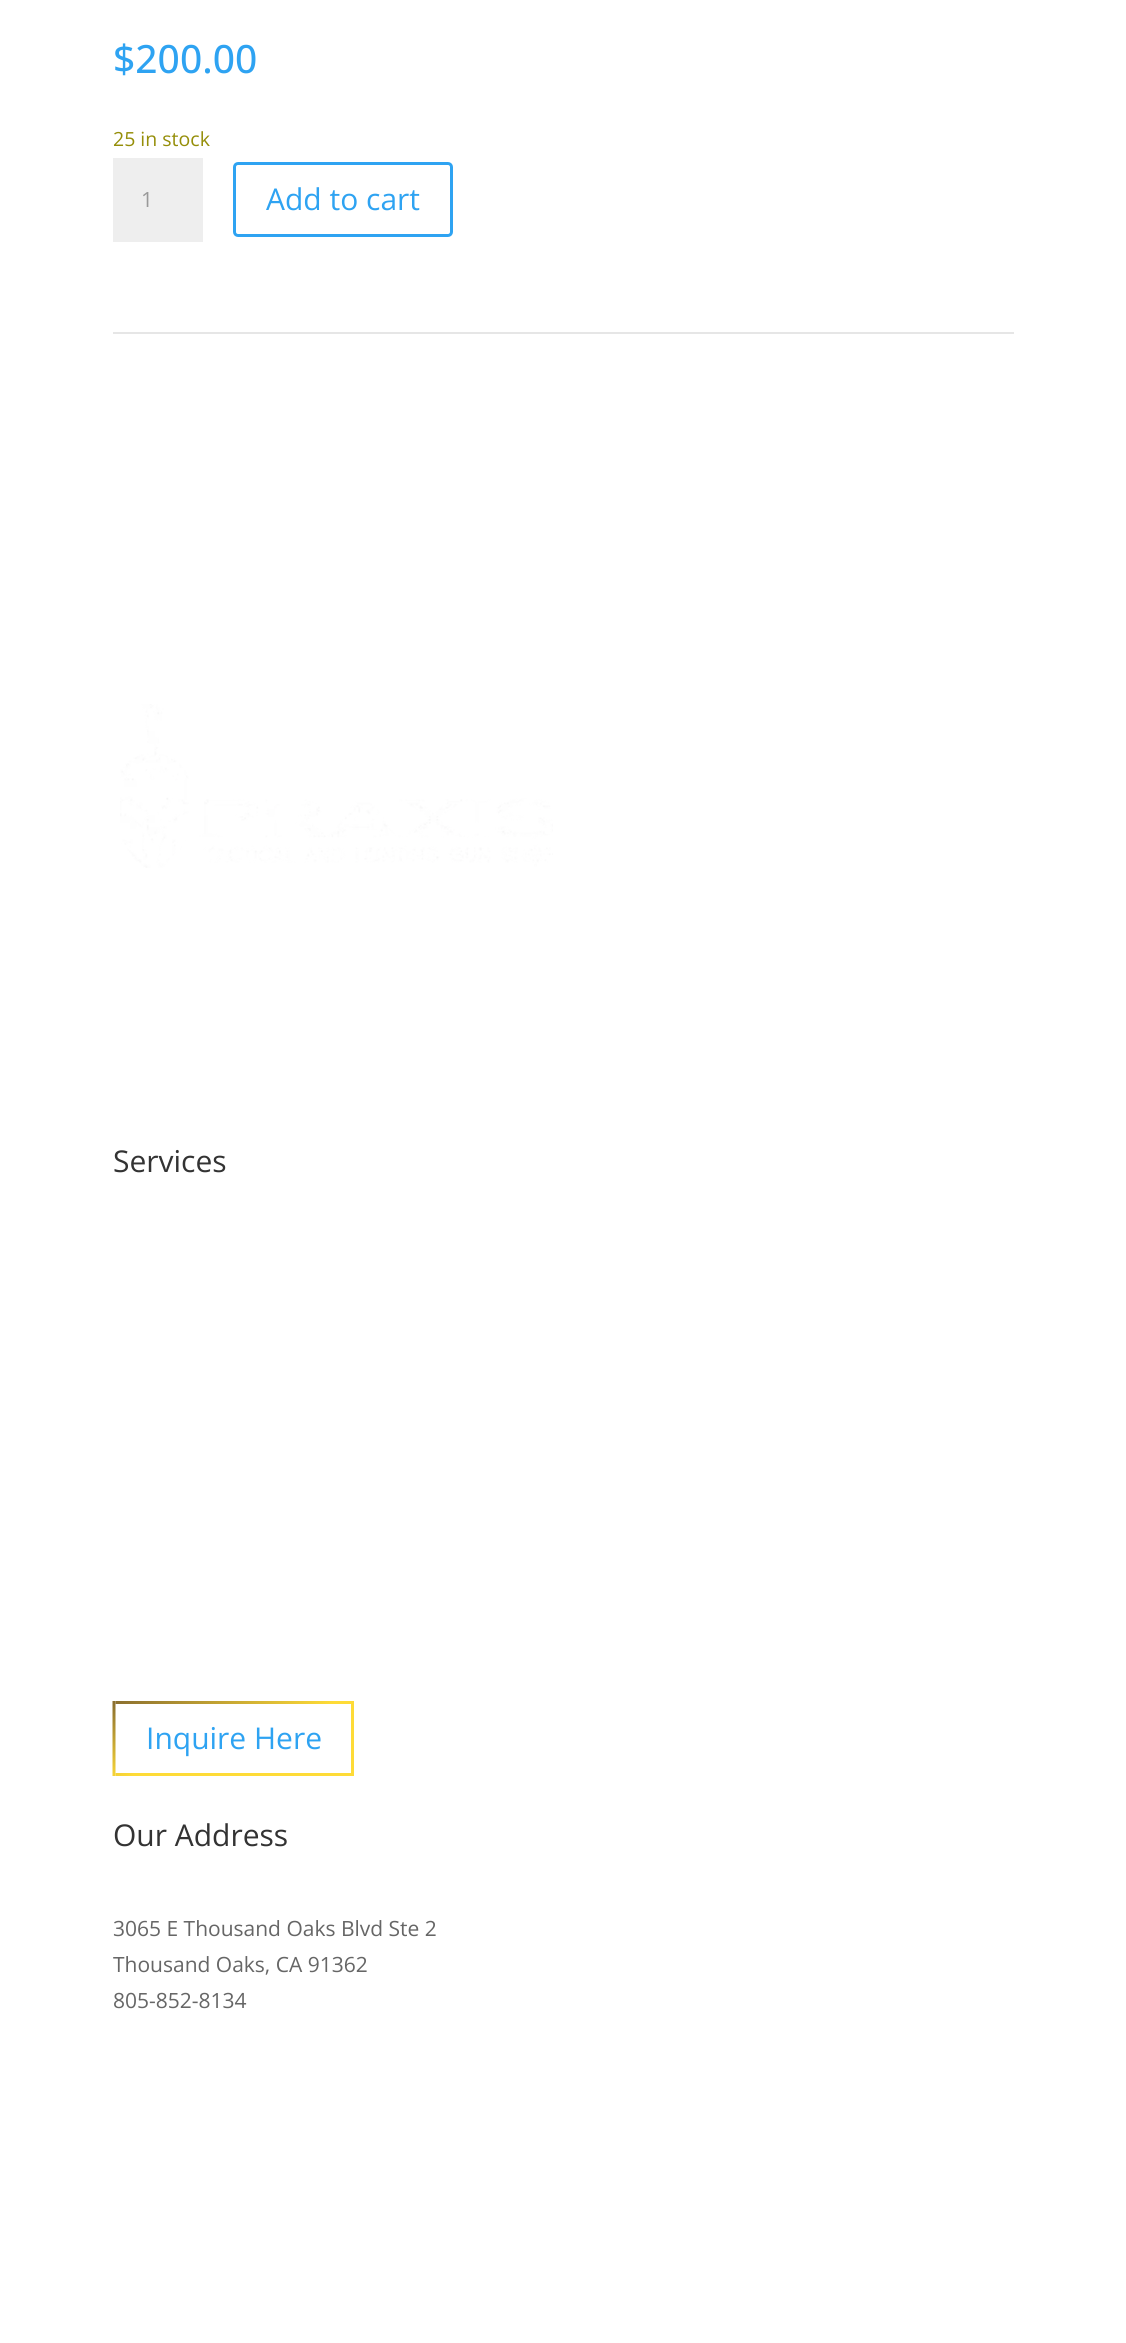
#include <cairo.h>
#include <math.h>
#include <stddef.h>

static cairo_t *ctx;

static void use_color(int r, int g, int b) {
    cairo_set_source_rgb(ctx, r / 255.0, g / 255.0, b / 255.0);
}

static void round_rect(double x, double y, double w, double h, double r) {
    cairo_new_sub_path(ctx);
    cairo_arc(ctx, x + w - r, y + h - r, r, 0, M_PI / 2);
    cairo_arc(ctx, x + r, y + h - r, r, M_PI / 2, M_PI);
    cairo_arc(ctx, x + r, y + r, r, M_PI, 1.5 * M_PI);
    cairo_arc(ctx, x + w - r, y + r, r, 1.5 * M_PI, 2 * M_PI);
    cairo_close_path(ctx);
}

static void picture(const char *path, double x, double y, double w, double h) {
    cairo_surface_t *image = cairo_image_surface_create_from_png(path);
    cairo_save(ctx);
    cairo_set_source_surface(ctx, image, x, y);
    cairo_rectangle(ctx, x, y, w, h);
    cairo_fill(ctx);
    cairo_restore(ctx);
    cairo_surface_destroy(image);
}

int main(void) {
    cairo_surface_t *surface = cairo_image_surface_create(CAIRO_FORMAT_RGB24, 1126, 2343);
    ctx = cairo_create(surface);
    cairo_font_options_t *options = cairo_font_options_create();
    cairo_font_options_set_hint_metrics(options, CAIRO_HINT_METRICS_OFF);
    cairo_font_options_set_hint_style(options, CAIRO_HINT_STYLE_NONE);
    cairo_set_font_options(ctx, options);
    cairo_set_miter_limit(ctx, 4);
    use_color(255, 255, 255);
    cairo_paint(ctx);
    cairo_select_font_face(ctx, "Open Sans Medium", CAIRO_FONT_SLANT_NORMAL, CAIRO_FONT_WEIGHT_NORMAL);
    cairo_set_font_size(ctx, 39);
    use_color(46, 163, 242);
    cairo_move_to(ctx, 113, 73);
    cairo_show_text(ctx, "$200.00");
    cairo_select_font_face(ctx, "Open Sans", CAIRO_FONT_SLANT_NORMAL, CAIRO_FONT_WEIGHT_NORMAL);
    cairo_set_font_size(ctx, 19.5);
    use_color(149, 142, 9);
    cairo_move_to(ctx, 113, 146);
    cairo_show_text(ctx, "25 in stock");
    use_color(238, 238, 238);
    cairo_rectangle(ctx, 113, 158, 90, 84);
    cairo_fill(ctx);
    cairo_set_font_size(ctx, 21);
    use_color(153, 153, 153);
    cairo_move_to(ctx, 141, 207);
    cairo_show_text(ctx, "1");
    round_rect(234.5, 163.5, 217, 72, 3.5);
    use_color(46, 163, 242);
    cairo_set_line_width(ctx, 3);
    cairo_stroke(ctx);
    cairo_set_font_size(ctx, 30);
    cairo_move_to(ctx, 266, 210);
    cairo_show_text(ctx, "Add to cart");
    use_color(230, 230, 230);
    cairo_rectangle(ctx, 113, 332, 901, 2);
    cairo_fill(ctx);
    picture("img1.png", 120, 704, 433, 164);
    use_color(51, 51, 51);
    cairo_move_to(ctx, 113, 1172);
    cairo_show_text(ctx, "Services");
    picture("img2.png", 112, 1701, 242, 75);
    use_color(46, 163, 242);
    cairo_move_to(ctx, 146, 1749);
    cairo_show_text(ctx, "Inquire Here");
    use_color(51, 51, 51);
    cairo_move_to(ctx, 113, 1846);
    cairo_show_text(ctx, "Our Address");
    cairo_set_font_size(ctx, 21);
    use_color(102, 102, 102);
    cairo_move_to(ctx, 113, 1936);
    cairo_show_text(ctx, "3065 E Thousand Oaks Blvd Ste 2");
    cairo_move_to(ctx, 113, 1972);
    cairo_show_text(ctx, "Thousand Oaks, CA 91362");
    cairo_move_to(ctx, 113, 2008);
    cairo_show_text(ctx, "805-852-8134");
    cairo_surface_write_to_png(surface, "result.png");
    cairo_font_options_destroy(options);
    cairo_destroy(ctx);
    cairo_surface_destroy(surface);
    return 0;
}
